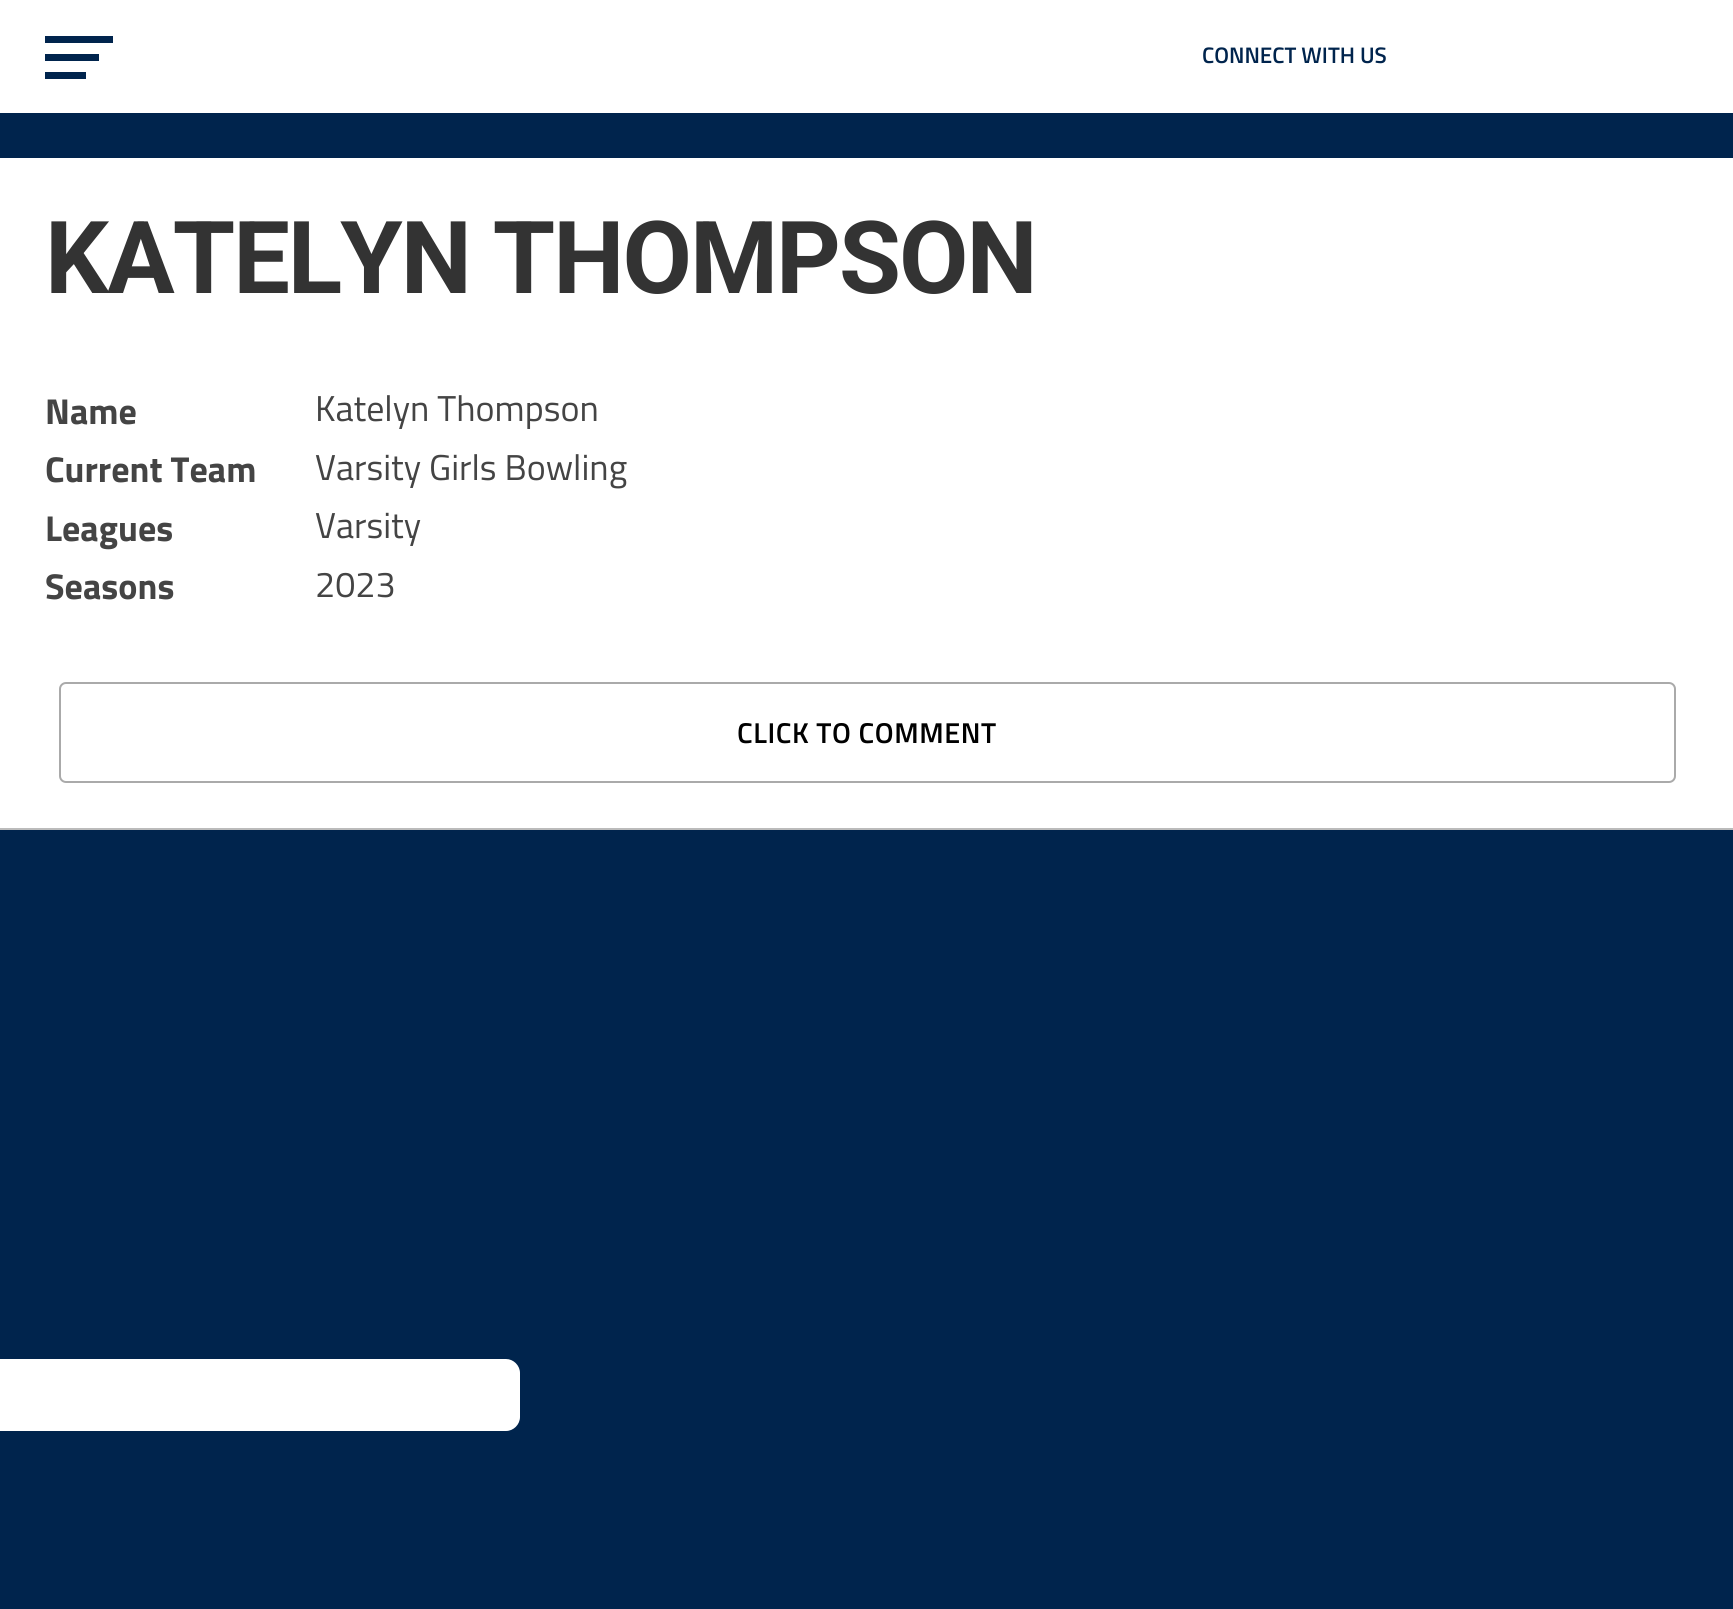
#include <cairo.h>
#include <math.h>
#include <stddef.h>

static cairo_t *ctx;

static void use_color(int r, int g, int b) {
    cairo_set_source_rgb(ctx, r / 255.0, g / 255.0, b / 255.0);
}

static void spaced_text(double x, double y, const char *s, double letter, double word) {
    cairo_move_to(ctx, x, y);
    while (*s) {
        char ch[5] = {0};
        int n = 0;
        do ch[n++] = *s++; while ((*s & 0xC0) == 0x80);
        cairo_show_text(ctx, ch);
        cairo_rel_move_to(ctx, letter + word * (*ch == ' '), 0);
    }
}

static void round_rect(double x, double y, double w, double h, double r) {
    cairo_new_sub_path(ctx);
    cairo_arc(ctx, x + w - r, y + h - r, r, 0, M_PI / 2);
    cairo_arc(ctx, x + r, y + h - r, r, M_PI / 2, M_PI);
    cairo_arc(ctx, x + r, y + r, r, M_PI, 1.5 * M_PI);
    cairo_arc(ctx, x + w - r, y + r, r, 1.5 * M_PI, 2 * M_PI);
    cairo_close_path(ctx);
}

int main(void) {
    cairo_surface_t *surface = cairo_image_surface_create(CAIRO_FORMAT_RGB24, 1733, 1609);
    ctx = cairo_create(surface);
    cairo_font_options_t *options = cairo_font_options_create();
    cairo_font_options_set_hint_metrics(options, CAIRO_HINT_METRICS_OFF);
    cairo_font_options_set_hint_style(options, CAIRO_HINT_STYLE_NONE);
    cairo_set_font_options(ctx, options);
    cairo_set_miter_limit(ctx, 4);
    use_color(0, 36, 77);
    cairo_paint(ctx);
    use_color(255, 255, 255);
    cairo_rectangle(ctx, 0, 0, 1733, 113);
    cairo_fill(ctx);
    use_color(0, 36, 77);
    cairo_rectangle(ctx, 45, 36, 68, 7);
    cairo_fill(ctx);
    cairo_rectangle(ctx, 45, 54, 54, 7);
    cairo_fill(ctx);
    cairo_rectangle(ctx, 45, 72, 41, 7);
    cairo_fill(ctx);
    cairo_select_font_face(ctx, "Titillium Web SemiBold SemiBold", CAIRO_FONT_SLANT_NORMAL, CAIRO_FONT_WEIGHT_NORMAL);
    cairo_set_font_size(ctx, 22.5);
    cairo_move_to(ctx, 1202, 63);
    cairo_show_text(ctx, "CONNECT WITH US");
    use_color(255, 255, 255);
    cairo_rectangle(ctx, 0, 158, 1733, 670);
    cairo_fill(ctx);
    use_color(187, 187, 187);
    cairo_rectangle(ctx, 0, 828, 1733, 2);
    cairo_fill(ctx);
    cairo_select_font_face(ctx, "Roboto", CAIRO_FONT_SLANT_NORMAL, CAIRO_FONT_WEIGHT_BOLD);
    cairo_set_font_size(ctx, 100.75);
    use_color(51, 51, 51);
    spaced_text(45, 293, "KATELYN THOMPSON", -2, 0);
    cairo_select_font_face(ctx, "Titillium Web", CAIRO_FONT_SLANT_NORMAL, CAIRO_FONT_WEIGHT_BOLD);
    cairo_set_font_size(ctx, 36);
    use_color(68, 68, 68);
    cairo_move_to(ctx, 45, 424);
    cairo_show_text(ctx, "Name");
    cairo_select_font_face(ctx, "Titillium Web", CAIRO_FONT_SLANT_NORMAL, CAIRO_FONT_WEIGHT_NORMAL);
    cairo_move_to(ctx, 315, 421);
    cairo_show_text(ctx, "Katelyn Thompson");
    cairo_select_font_face(ctx, "Titillium Web", CAIRO_FONT_SLANT_NORMAL, CAIRO_FONT_WEIGHT_BOLD);
    cairo_move_to(ctx, 45, 482);
    cairo_show_text(ctx, "Current Team");
    cairo_select_font_face(ctx, "Titillium Web", CAIRO_FONT_SLANT_NORMAL, CAIRO_FONT_WEIGHT_NORMAL);
    cairo_move_to(ctx, 315, 480);
    cairo_show_text(ctx, "Varsity Girls Bowling");
    cairo_select_font_face(ctx, "Titillium Web", CAIRO_FONT_SLANT_NORMAL, CAIRO_FONT_WEIGHT_BOLD);
    cairo_move_to(ctx, 45, 541);
    cairo_show_text(ctx, "Leagues");
    cairo_select_font_face(ctx, "Titillium Web", CAIRO_FONT_SLANT_NORMAL, CAIRO_FONT_WEIGHT_NORMAL);
    cairo_move_to(ctx, 315, 538);
    cairo_show_text(ctx, "Varsity");
    cairo_select_font_face(ctx, "Titillium Web", CAIRO_FONT_SLANT_NORMAL, CAIRO_FONT_WEIGHT_BOLD);
    cairo_move_to(ctx, 45, 599);
    cairo_show_text(ctx, "Seasons");
    cairo_select_font_face(ctx, "Titillium Web", CAIRO_FONT_SLANT_NORMAL, CAIRO_FONT_WEIGHT_NORMAL);
    cairo_move_to(ctx, 315, 597);
    cairo_show_text(ctx, "2023");
    round_rect(60, 683, 1615, 99, 6);
    use_color(170, 170, 170);
    cairo_stroke(ctx);
    cairo_select_font_face(ctx, "Titillium Web SemiBold SemiBold", CAIRO_FONT_SLANT_NORMAL, CAIRO_FONT_WEIGHT_NORMAL);
    cairo_set_font_size(ctx, 28.75);
    use_color(0, 0, 0);
    spaced_text(737, 743, "CLICK TO COMMENT", 0.6, 0);
    use_color(255, 255, 255);
    cairo_new_path(ctx);
    cairo_move_to(ctx, -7, 1359);
    cairo_line_to(ctx, 506, 1359);
    cairo_curve_to(ctx, 513.5, 1359, 520, 1365.5, 520, 1373);
    cairo_line_to(ctx, 520, 1417);
    cairo_curve_to(ctx, 520, 1424.5, 513.5, 1431, 506, 1431);
    cairo_line_to(ctx, -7, 1431);
    cairo_close_path(ctx);
    cairo_fill(ctx);
    cairo_surface_write_to_png(surface, "result.png");
    cairo_font_options_destroy(options);
    cairo_destroy(ctx);
    cairo_surface_destroy(surface);
    return 0;
}
